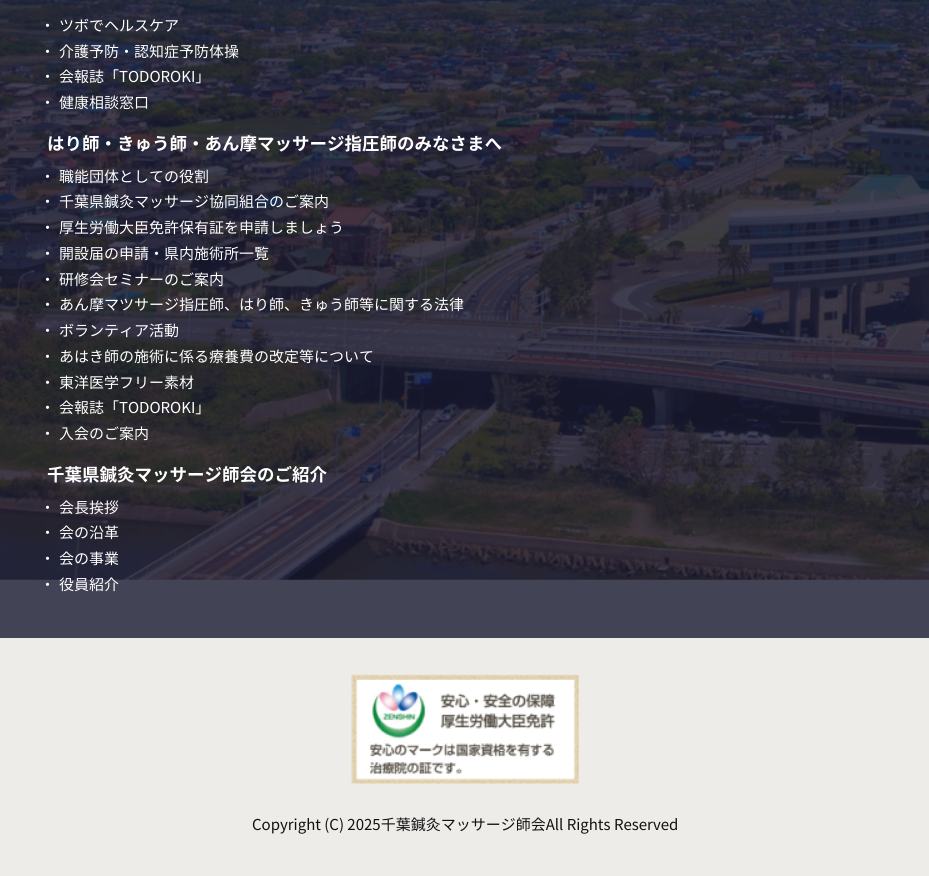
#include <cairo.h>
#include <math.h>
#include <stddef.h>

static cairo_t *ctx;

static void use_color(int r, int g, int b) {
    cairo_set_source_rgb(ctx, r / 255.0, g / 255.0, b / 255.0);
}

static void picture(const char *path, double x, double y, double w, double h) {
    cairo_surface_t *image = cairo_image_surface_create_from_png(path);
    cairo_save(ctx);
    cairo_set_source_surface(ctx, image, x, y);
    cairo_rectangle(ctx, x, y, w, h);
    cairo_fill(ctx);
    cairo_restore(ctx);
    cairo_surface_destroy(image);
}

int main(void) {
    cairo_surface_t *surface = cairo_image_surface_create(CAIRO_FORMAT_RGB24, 929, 876);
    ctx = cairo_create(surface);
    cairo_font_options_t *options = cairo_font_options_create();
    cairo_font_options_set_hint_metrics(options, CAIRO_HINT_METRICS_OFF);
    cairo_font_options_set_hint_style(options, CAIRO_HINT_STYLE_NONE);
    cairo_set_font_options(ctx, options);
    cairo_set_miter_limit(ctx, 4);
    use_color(67, 67, 86);
    cairo_paint(ctx);
    picture("img1.png", 0, 0, 929, 580);
    cairo_select_font_face(ctx, "Noto Sans JP", CAIRO_FONT_SLANT_NORMAL, CAIRO_FONT_WEIGHT_NORMAL);
    cairo_set_font_size(ctx, 15);
    use_color(255, 255, 255);
    cairo_move_to(ctx, 40, 31);
    cairo_show_text(ctx, "・");
    cairo_move_to(ctx, 59, 31);
    cairo_show_text(ctx, "ツボでヘルスケア");
    cairo_move_to(ctx, 40, 57);
    cairo_show_text(ctx, "・");
    cairo_move_to(ctx, 59, 57);
    cairo_show_text(ctx, "介護予防・認知症予防体操");
    cairo_move_to(ctx, 40, 82);
    cairo_show_text(ctx, "・");
    cairo_move_to(ctx, 59, 82);
    cairo_show_text(ctx, "会報誌「TODOROKI」");
    cairo_move_to(ctx, 40, 108);
    cairo_show_text(ctx, "・");
    cairo_move_to(ctx, 59, 108);
    cairo_show_text(ctx, "健康相談窓口");
    cairo_select_font_face(ctx, "Noto Sans JP", CAIRO_FONT_SLANT_NORMAL, CAIRO_FONT_WEIGHT_BOLD);
    cairo_set_font_size(ctx, 17.5);
    cairo_move_to(ctx, 47, 150);
    cairo_show_text(ctx, "はり師・きゅう師・あん摩マッサージ指圧師のみなさまへ");
    cairo_select_font_face(ctx, "Noto Sans JP", CAIRO_FONT_SLANT_NORMAL, CAIRO_FONT_WEIGHT_NORMAL);
    cairo_set_font_size(ctx, 15);
    cairo_move_to(ctx, 40, 182);
    cairo_show_text(ctx, "・");
    cairo_move_to(ctx, 59, 182);
    cairo_show_text(ctx, "職能団体としての役割");
    cairo_move_to(ctx, 40, 207);
    cairo_show_text(ctx, "・");
    cairo_move_to(ctx, 59, 207);
    cairo_show_text(ctx, "千葉県鍼灸マッサージ協同組合のご案内");
    cairo_move_to(ctx, 40, 233);
    cairo_show_text(ctx, "・");
    cairo_move_to(ctx, 59, 233);
    cairo_show_text(ctx, "厚生労働大臣免許保有証を申請しましょう");
    cairo_move_to(ctx, 40, 259);
    cairo_show_text(ctx, "・");
    cairo_move_to(ctx, 59, 259);
    cairo_show_text(ctx, "開設届の申請・県内施術所一覧");
    cairo_move_to(ctx, 40, 285);
    cairo_show_text(ctx, "・");
    cairo_move_to(ctx, 59, 285);
    cairo_show_text(ctx, "研修会セミナーのご案内");
    cairo_move_to(ctx, 40, 310);
    cairo_show_text(ctx, "・");
    cairo_move_to(ctx, 59, 310);
    cairo_show_text(ctx, "あん摩マツサージ指圧師、はり師、きゅう師等に関する法律");
    cairo_move_to(ctx, 40, 336);
    cairo_show_text(ctx, "・");
    cairo_move_to(ctx, 59, 336);
    cairo_show_text(ctx, "ボランティア活動");
    cairo_move_to(ctx, 40, 362);
    cairo_show_text(ctx, "・");
    cairo_move_to(ctx, 59, 362);
    cairo_show_text(ctx, "あはき師の施術に係る療養費の改定等について");
    cairo_move_to(ctx, 40, 388);
    cairo_show_text(ctx, "・");
    cairo_move_to(ctx, 59, 388);
    cairo_show_text(ctx, "東洋医学フリー素材");
    cairo_move_to(ctx, 40, 413);
    cairo_show_text(ctx, "・");
    cairo_move_to(ctx, 59, 413);
    cairo_show_text(ctx, "会報誌「TODOROKI」");
    cairo_move_to(ctx, 40, 439);
    cairo_show_text(ctx, "・");
    cairo_move_to(ctx, 59, 439);
    cairo_show_text(ctx, "入会のご案内");
    cairo_select_font_face(ctx, "Noto Sans JP", CAIRO_FONT_SLANT_NORMAL, CAIRO_FONT_WEIGHT_BOLD);
    cairo_set_font_size(ctx, 17.5);
    cairo_move_to(ctx, 47, 481);
    cairo_show_text(ctx, "千葉県鍼灸マッサージ師会のご紹介");
    cairo_select_font_face(ctx, "Noto Sans JP", CAIRO_FONT_SLANT_NORMAL, CAIRO_FONT_WEIGHT_NORMAL);
    cairo_set_font_size(ctx, 15);
    cairo_move_to(ctx, 40, 513);
    cairo_show_text(ctx, "・");
    cairo_move_to(ctx, 59, 513);
    cairo_show_text(ctx, "会長挨拶");
    cairo_move_to(ctx, 40, 538);
    cairo_show_text(ctx, "・");
    cairo_move_to(ctx, 59, 538);
    cairo_show_text(ctx, "会の沿革");
    cairo_move_to(ctx, 40, 564);
    cairo_show_text(ctx, "・");
    cairo_move_to(ctx, 59, 564);
    cairo_show_text(ctx, "会の事業");
    cairo_move_to(ctx, 40, 590);
    cairo_show_text(ctx, "・");
    cairo_move_to(ctx, 59, 590);
    cairo_show_text(ctx, "役員紹介");
    use_color(238, 236, 233);
    cairo_rectangle(ctx, 0, 638, 929, 238);
    cairo_fill(ctx);
    picture("img2.png", 351, 674, 228, 110);
    use_color(17, 17, 17);
    cairo_move_to(ctx, 252, 830);
    cairo_show_text(ctx, "Copyright (C) 2025千葉鍼灸マッサージ師会All Rights Reserved");
    cairo_surface_write_to_png(surface, "result.png");
    cairo_font_options_destroy(options);
    cairo_destroy(ctx);
    cairo_surface_destroy(surface);
    return 0;
}
